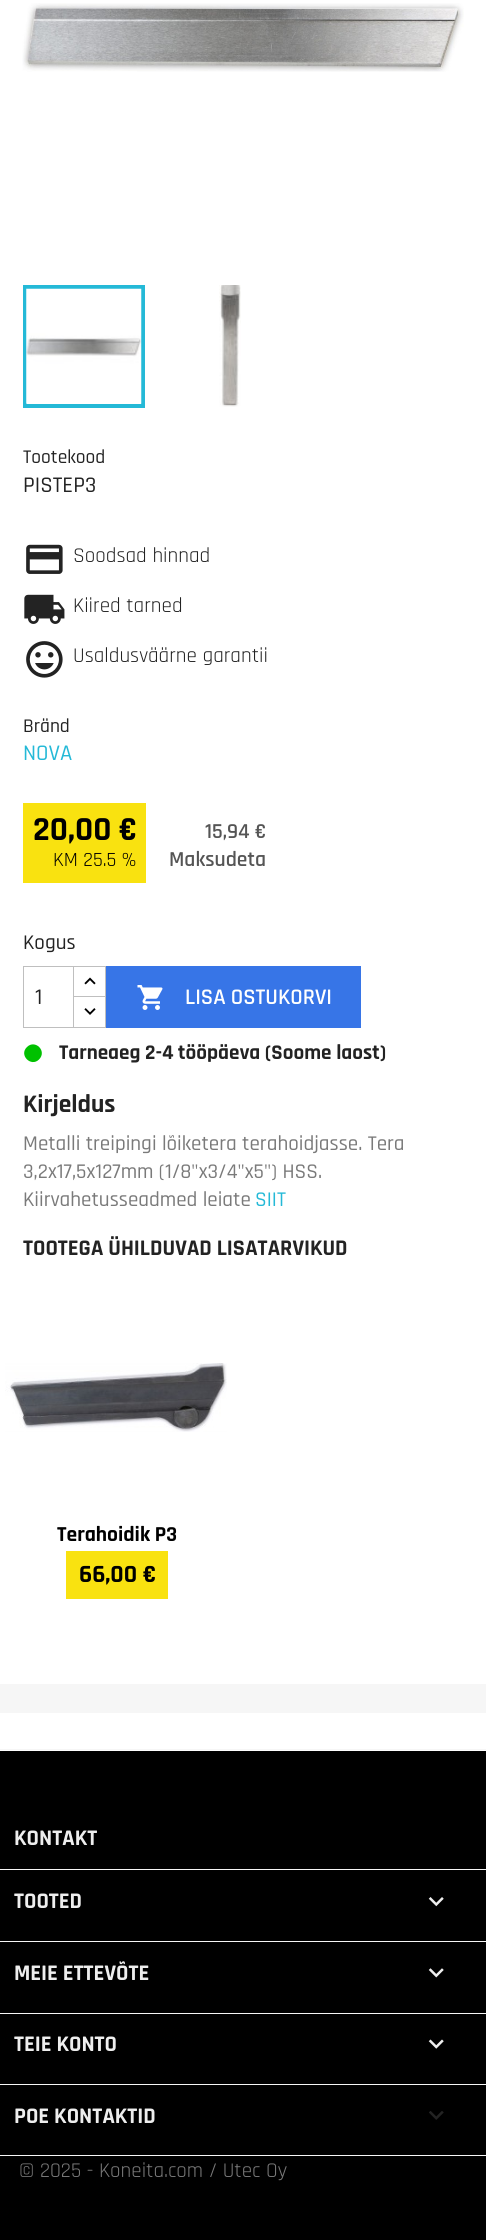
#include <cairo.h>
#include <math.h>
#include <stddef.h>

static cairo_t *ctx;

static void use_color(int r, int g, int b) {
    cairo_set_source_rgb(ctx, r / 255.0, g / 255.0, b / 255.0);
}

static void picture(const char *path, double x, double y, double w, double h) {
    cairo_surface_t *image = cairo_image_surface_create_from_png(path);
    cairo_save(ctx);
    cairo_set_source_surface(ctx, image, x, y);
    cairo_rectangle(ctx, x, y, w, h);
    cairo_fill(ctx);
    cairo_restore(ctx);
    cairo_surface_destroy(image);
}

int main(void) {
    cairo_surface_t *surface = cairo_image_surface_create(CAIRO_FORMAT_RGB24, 486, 2240);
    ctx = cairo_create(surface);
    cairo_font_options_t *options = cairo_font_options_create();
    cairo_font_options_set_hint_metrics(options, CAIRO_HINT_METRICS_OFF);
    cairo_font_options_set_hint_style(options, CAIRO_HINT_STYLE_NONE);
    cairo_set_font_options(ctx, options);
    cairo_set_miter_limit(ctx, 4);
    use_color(246, 246, 246);
    cairo_paint(ctx);
    use_color(255, 255, 255);
    cairo_rectangle(ctx, 0, 0, 486, 1684);
    cairo_fill(ctx);
    picture("img1.png", 22, 3, 442, 69);
    cairo_rectangle(ctx, 25, 287, 118, 119);
    use_color(36, 185, 215);
    cairo_set_line_width(ctx, 4);
    cairo_stroke(ctx);
    picture("img2.png", 219, 285, 22, 122);
    picture("img3.png", 26, 288, 116, 116);
    cairo_select_font_face(ctx, "Rajdhani Medium", CAIRO_FONT_SLANT_NORMAL, CAIRO_FONT_WEIGHT_NORMAL);
    cairo_set_font_size(ctx, 19.5);
    use_color(35, 35, 35);
    cairo_move_to(ctx, 23, 463);
    cairo_show_text(ctx, "Tootekood");
    cairo_set_font_size(ctx, 22.5);
    cairo_move_to(ctx, 23, 492);
    cairo_show_text(ctx, "PISTEP3");
    picture("img4.png", 26, 544, 37, 30);
    cairo_select_font_face(ctx, "Rajdhani", CAIRO_FONT_SLANT_NORMAL, CAIRO_FONT_WEIGHT_NORMAL);
    cairo_set_font_size(ctx, 21.1);
    cairo_move_to(ctx, 73, 562);
    cairo_show_text(ctx, "Soodsad hinnad");
    picture("img5.png", 24, 594, 41, 30);
    cairo_move_to(ctx, 73, 612);
    cairo_show_text(ctx, "Kiired tarned");
    picture("img6.png", 26, 641, 37, 37);
    cairo_move_to(ctx, 73, 662);
    cairo_show_text(ctx, "Usaldusväärne garantii");
    cairo_select_font_face(ctx, "Rajdhani Medium", CAIRO_FONT_SLANT_NORMAL, CAIRO_FONT_WEIGHT_NORMAL);
    cairo_set_font_size(ctx, 19.5);
    cairo_move_to(ctx, 23, 732);
    cairo_show_text(ctx, "Bränd");
    cairo_set_font_size(ctx, 22.5);
    use_color(36, 185, 215);
    cairo_move_to(ctx, 23, 760);
    cairo_show_text(ctx, "NOVA");
    use_color(249, 226, 16);
    cairo_rectangle(ctx, 23, 803, 123, 80);
    cairo_fill(ctx);
    cairo_select_font_face(ctx, "Rajdhani", CAIRO_FONT_SLANT_NORMAL, CAIRO_FONT_WEIGHT_BOLD);
    cairo_set_font_size(ctx, 34);
    use_color(0, 0, 0);
    cairo_move_to(ctx, 33, 840);
    cairo_show_text(ctx, "20,00 €");
    cairo_select_font_face(ctx, "Rajdhani", CAIRO_FONT_SLANT_NORMAL, CAIRO_FONT_WEIGHT_NORMAL);
    cairo_set_font_size(ctx, 20.25);
    cairo_move_to(ctx, 53, 866);
    cairo_show_text(ctx, "KM 25.5 %");
    cairo_select_font_face(ctx, "Rajdhani SemiBold", CAIRO_FONT_SLANT_NORMAL, CAIRO_FONT_WEIGHT_NORMAL);
    cairo_set_font_size(ctx, 21.5);
    use_color(85, 85, 85);
    cairo_move_to(ctx, 205, 838);
    cairo_show_text(ctx, "15,94 €");
    cairo_move_to(ctx, 169, 866);
    cairo_show_text(ctx, "Maksudeta");
    cairo_select_font_face(ctx, "Rajdhani Medium", CAIRO_FONT_SLANT_NORMAL, CAIRO_FONT_WEIGHT_NORMAL);
    cairo_set_font_size(ctx, 21.1);
    use_color(35, 35, 35);
    cairo_move_to(ctx, 23, 949);
    cairo_show_text(ctx, "Kogus");
    cairo_rectangle(ctx, 73.5, 966.5, 32, 32);
    use_color(191, 191, 191);
    cairo_set_line_width(ctx, 1);
    cairo_stroke(ctx);
    use_color(255, 255, 255);
    cairo_rectangle(ctx, 74, 998, 31, 1);
    cairo_fill(ctx);
    cairo_rectangle(ctx, 73.5, 996.5, 32, 31);
    use_color(191, 191, 191);
    cairo_stroke(ctx);
    cairo_rectangle(ctx, 23.5, 966.5, 50, 61);
    cairo_stroke(ctx);
    cairo_set_font_size(ctx, 22.5);
    use_color(35, 35, 35);
    cairo_move_to(ctx, 35, 1004);
    cairo_show_text(ctx, "1");
    picture("img7.png", 84, 977, 12, 8);
    picture("img8.png", 84, 1008, 12, 7);
    use_color(55, 117, 231);
    cairo_rectangle(ctx, 106, 966, 255, 62);
    cairo_fill(ctx);
    picture("img9.png", 137, 985, 26, 25);
    cairo_select_font_face(ctx, "Rajdhani SemiBold", CAIRO_FONT_SLANT_NORMAL, CAIRO_FONT_WEIGHT_NORMAL);
    use_color(255, 255, 255);
    cairo_move_to(ctx, 185, 1004);
    cairo_show_text(ctx, "LISA OSTUKORVI");
    cairo_select_font_face(ctx, "Rajdhani", CAIRO_FONT_SLANT_NORMAL, CAIRO_FONT_WEIGHT_BOLD);
    cairo_set_font_size(ctx, 21.1);
    use_color(35, 35, 35);
    cairo_move_to(ctx, 59, 1059);
    cairo_show_text(ctx, "Tarneaeg 2-4 tööpäeva (Soome laost)");
    use_color(0, 193, 0);
    cairo_new_path(ctx);
    cairo_move_to(ctx, 27, 1047);
    cairo_curve_to(ctx, 35, 1039, 47.5, 1051, 39, 1059.5);
    cairo_curve_to(ctx, 31, 1067.5, 18.5, 1055, 27, 1047);
    cairo_close_path(ctx);
    cairo_fill(ctx);
    cairo_set_font_size(ctx, 25.5);
    use_color(35, 35, 35);
    cairo_move_to(ctx, 23, 1112);
    cairo_show_text(ctx, "Kirjeldus");
    cairo_select_font_face(ctx, "Rajdhani Medium", CAIRO_FONT_SLANT_NORMAL, CAIRO_FONT_WEIGHT_NORMAL);
    cairo_set_font_size(ctx, 21.1);
    use_color(122, 122, 122);
    cairo_move_to(ctx, 23, 1150);
    cairo_show_text(ctx, "Metalli treipingi lõiketera terahoidjasse. Tera");
    cairo_move_to(ctx, 23, 1178);
    cairo_show_text(ctx, "3,2x17,5x127mm (1/8\"x3/4\"x5\") HSS.");
    cairo_move_to(ctx, 23, 1206);
    cairo_show_text(ctx, "Kiirvahetusseadmed leiate");
    use_color(36, 185, 215);
    cairo_move_to(ctx, 255, 1206);
    cairo_show_text(ctx, "SIIT");
    cairo_select_font_face(ctx, "Rajdhani", CAIRO_FONT_SLANT_NORMAL, CAIRO_FONT_WEIGHT_BOLD);
    cairo_set_font_size(ctx, 22.5);
    use_color(35, 35, 35);
    cairo_move_to(ctx, 23, 1255);
    cairo_show_text(ctx, "TOOTEGA ÜHILDUVAD LISATARVIKUD");
    picture("img10.png", 5, 1363, 222, 69);
    cairo_set_font_size(ctx, 21.5);
    use_color(0, 0, 0);
    cairo_move_to(ctx, 57, 1541);
    cairo_show_text(ctx, "Terahoidik P3");
    use_color(249, 226, 16);
    cairo_rectangle(ctx, 66, 1551, 102, 48);
    cairo_fill(ctx);
    cairo_set_font_size(ctx, 25);
    use_color(0, 0, 0);
    cairo_move_to(ctx, 79, 1582);
    cairo_show_text(ctx, "66,00 €");
    use_color(255, 255, 255);
    cairo_rectangle(ctx, 0, 1713, 486, 38);
    cairo_fill(ctx);
    use_color(246, 246, 246);
    cairo_rectangle(ctx, 0, 1749, 486, 1);
    cairo_fill(ctx);
    use_color(0, 0, 0);
    cairo_rectangle(ctx, 0, 1751, 486, 489);
    cairo_fill(ctx);
    use_color(246, 246, 246);
    cairo_rectangle(ctx, 0, 1869, 486, 1);
    cairo_fill(ctx);
    cairo_set_font_size(ctx, 22.5);
    use_color(238, 238, 238);
    cairo_move_to(ctx, 14, 1845);
    cairo_show_text(ctx, "KONTAKT");
    use_color(246, 246, 246);
    cairo_rectangle(ctx, 0, 1941, 486, 1);
    cairo_fill(ctx);
    use_color(238, 238, 238);
    cairo_move_to(ctx, 14, 1908);
    cairo_show_text(ctx, "TOOTED");
    picture("img11.png", 428, 1897, 16, 10);
    use_color(246, 246, 246);
    cairo_rectangle(ctx, 0, 2013, 486, 1);
    cairo_fill(ctx);
    use_color(238, 238, 238);
    cairo_move_to(ctx, 14, 1980);
    cairo_show_text(ctx, "MEIE ETTEVÕTE");
    picture("img12.png", 428, 1968, 16, 10);
    use_color(246, 246, 246);
    cairo_rectangle(ctx, 0, 2084, 486, 1);
    cairo_fill(ctx);
    use_color(238, 238, 238);
    cairo_move_to(ctx, 14, 2051);
    cairo_show_text(ctx, "TEIE KONTO");
    picture("img13.png", 428, 2039, 16, 10);
    use_color(246, 246, 246);
    cairo_rectangle(ctx, 0, 2155, 486, 1);
    cairo_fill(ctx);
    use_color(238, 238, 238);
    cairo_move_to(ctx, 14, 2123);
    cairo_show_text(ctx, "POE KONTAKTID");
    picture("img14.png", 429, 2111, 15, 9);
    cairo_select_font_face(ctx, "Rajdhani", CAIRO_FONT_SLANT_NORMAL, CAIRO_FONT_WEIGHT_NORMAL);
    cairo_set_font_size(ctx, 21.1);
    use_color(122, 122, 122);
    cairo_move_to(ctx, 19, 2177);
    cairo_show_text(ctx, "© 2025 - Koneita.com / Utec Oy");
    cairo_surface_write_to_png(surface, "result.png");
    cairo_font_options_destroy(options);
    cairo_destroy(ctx);
    cairo_surface_destroy(surface);
    return 0;
}
